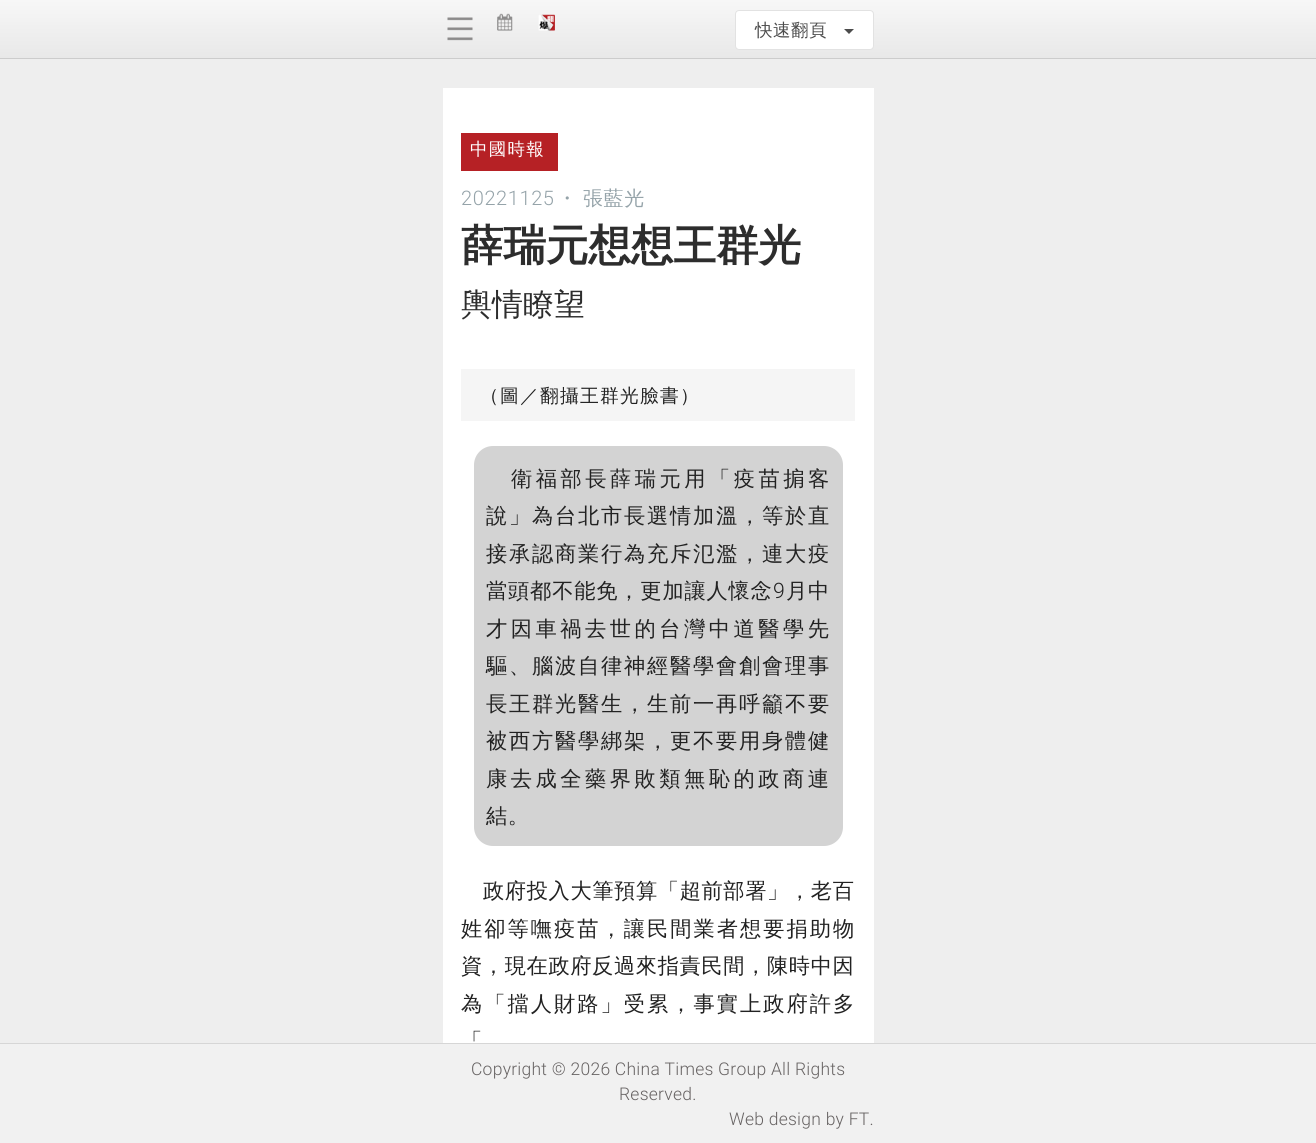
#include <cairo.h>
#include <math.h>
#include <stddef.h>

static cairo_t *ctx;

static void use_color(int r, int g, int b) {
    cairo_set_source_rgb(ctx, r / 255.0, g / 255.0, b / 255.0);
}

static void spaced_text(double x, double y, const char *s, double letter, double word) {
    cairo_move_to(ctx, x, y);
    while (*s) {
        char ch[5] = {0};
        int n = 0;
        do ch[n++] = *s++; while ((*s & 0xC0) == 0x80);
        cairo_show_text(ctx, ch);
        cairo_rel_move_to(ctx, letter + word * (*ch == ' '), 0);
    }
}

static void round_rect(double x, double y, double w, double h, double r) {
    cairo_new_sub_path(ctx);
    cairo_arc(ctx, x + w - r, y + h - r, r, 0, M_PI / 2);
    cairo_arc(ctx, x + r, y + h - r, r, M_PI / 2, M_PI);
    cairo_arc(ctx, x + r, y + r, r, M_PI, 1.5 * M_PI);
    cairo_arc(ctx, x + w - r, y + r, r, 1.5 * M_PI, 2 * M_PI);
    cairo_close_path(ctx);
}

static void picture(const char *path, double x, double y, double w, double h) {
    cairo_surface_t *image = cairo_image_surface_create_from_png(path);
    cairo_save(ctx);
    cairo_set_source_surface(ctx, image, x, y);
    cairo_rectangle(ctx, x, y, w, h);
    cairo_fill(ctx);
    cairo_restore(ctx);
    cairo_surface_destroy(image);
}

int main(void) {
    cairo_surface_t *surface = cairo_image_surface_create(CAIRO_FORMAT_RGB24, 1316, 1143);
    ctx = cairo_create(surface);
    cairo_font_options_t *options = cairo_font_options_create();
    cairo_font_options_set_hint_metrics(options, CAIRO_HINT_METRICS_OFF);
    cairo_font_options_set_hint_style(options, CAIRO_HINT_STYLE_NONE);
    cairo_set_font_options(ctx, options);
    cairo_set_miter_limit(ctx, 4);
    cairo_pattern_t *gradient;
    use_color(238, 238, 238);
    cairo_paint(ctx);
    gradient = cairo_pattern_create_linear(658, 0, 658, 58);
    cairo_pattern_add_color_stop_rgba(gradient, 0, 0.969, 0.969, 0.969, 1);
    cairo_pattern_add_color_stop_rgba(gradient, 1, 0.91, 0.91, 0.91, 1);
    cairo_set_source(ctx, gradient);
    cairo_pattern_destroy(gradient);
    cairo_rectangle(ctx, 0, 0, 1316, 58);
    cairo_fill(ctx);
    use_color(204, 204, 204);
    cairo_rectangle(ctx, 0, 58, 1316, 1);
    cairo_fill(ctx);
    picture("img1.png", 447, 17, 26, 24);
    picture("img2.png", 497, 13, 16, 18);
    picture("img3.png", 538, 14, 17, 17);
    use_color(255, 255, 255);
    round_rect(735.5, 10.5, 138, 39, 3.5);
    cairo_fill_preserve(ctx);
    use_color(226, 226, 226);
    cairo_set_line_width(ctx, 1);
    cairo_stroke(ctx);
    cairo_select_font_face(ctx, "WenQuanYi Zen Hei Medium", CAIRO_FONT_SLANT_NORMAL, CAIRO_FONT_WEIGHT_NORMAL);
    cairo_set_font_size(ctx, 17.5);
    use_color(76, 76, 76);
    spaced_text(755, 36, "快速翻頁", 0.5, 0);
    cairo_new_path(ctx);
    cairo_move_to(ctx, 844, 29);
    cairo_line_to(ctx, 854, 29);
    cairo_line_to(ctx, 849, 34);
    cairo_close_path(ctx);
    cairo_fill(ctx);
    use_color(255, 255, 255);
    cairo_rectangle(ctx, 443, 88, 431, 955);
    cairo_fill(ctx);
    use_color(182, 33, 37);
    cairo_rectangle(ctx, 461, 133, 97, 38);
    cairo_fill(ctx);
    use_color(255, 255, 255);
    spaced_text(470, 155, "中國時報", 1.25, 0);
    cairo_select_font_face(ctx, "Roboto Light", CAIRO_FONT_SLANT_NORMAL, CAIRO_FONT_WEIGHT_NORMAL);
    cairo_set_font_size(ctx, 20);
    use_color(149, 163, 169);
    spaced_text(461, 205, "20221125", 0.6, 0);
    cairo_select_font_face(ctx, "WenQuanYi Zen Hei Medium", CAIRO_FONT_SLANT_NORMAL, CAIRO_FONT_WEIGHT_NORMAL);
    spaced_text(557, 205, "・", 0.6, 0);
    spaced_text(583, 205, "張藍光", 0.6, 0);
    cairo_select_font_face(ctx, "WenQuanYi Zen Hei", CAIRO_FONT_SLANT_NORMAL, CAIRO_FONT_WEIGHT_BOLD);
    cairo_set_font_size(ctx, 42.5);
    use_color(45, 45, 45);
    cairo_move_to(ctx, 461, 260);
    cairo_show_text(ctx, "薛瑞元想想王群光");
    cairo_select_font_face(ctx, "WenQuanYi Zen Hei Medium", CAIRO_FONT_SLANT_NORMAL, CAIRO_FONT_WEIGHT_NORMAL);
    cairo_set_font_size(ctx, 31);
    cairo_move_to(ctx, 461, 315);
    cairo_show_text(ctx, "輿情瞭望");
    use_color(245, 245, 245);
    cairo_rectangle(ctx, 461, 369, 394, 52);
    cairo_fill(ctx);
    cairo_set_font_size(ctx, 18.75);
    use_color(34, 34, 34);
    spaced_text(480, 402, "（圖／翻攝王群光臉書）", 1.25, 0);
    use_color(211, 211, 211);
    round_rect(474, 446, 369, 400, 19);
    cairo_fill(ctx);
    cairo_set_font_size(ctx, 21.25);
    use_color(34, 34, 34);
    spaced_text(511, 486, "衛福部長薛瑞元用「疫苗掮客", 3.5, 0);
    spaced_text(486, 523, "說」為台北市長選情加溫，等於直", 1.75, 0);
    spaced_text(486, 561, "接承認商業行為充斥氾濫，連大疫", 1.75, 0);
    spaced_text(486, 598, "當頭都不能免，更加讓人懷念", 0.8, 0);
    cairo_select_font_face(ctx, "Roboto Light", CAIRO_FONT_SLANT_NORMAL, CAIRO_FONT_WEIGHT_NORMAL);
    spaced_text(773, 598, "9", 0.8, 0);
    cairo_select_font_face(ctx, "WenQuanYi Zen Hei Medium", CAIRO_FONT_SLANT_NORMAL, CAIRO_FONT_WEIGHT_NORMAL);
    spaced_text(786, 598, "月中", 0.8, 0);
    spaced_text(486, 636, "才因車禍去世的台灣中道醫學先", 3.5, 0);
    spaced_text(486, 673, "驅、腦波自律神經醫學會創會理事", 1.75, 0);
    spaced_text(486, 711, "長王群光醫生，生前一再呼籲不要", 1.75, 0);
    spaced_text(486, 748, "被西方醫學綁架，更不要用身體健", 1.75, 0);
    spaced_text(486, 786, "康去成全藥界敗類無恥的政商連", 3.5, 0);
    spaced_text(486, 823, "結。", 0.6, 0);
    spaced_text(483, 898, "政府投入大筆預算「超前部署」，老百", 0.6, 0);
    spaced_text(461, 936, "姓卻等嘸疫苗，讓民間業者想要捐助物", 2, 0);
    spaced_text(461, 973, "資，現在政府反過來指責民間，陳時中因", 0.6, 0);
    spaced_text(461, 1011, "為「擋人財路」受累，事實上政府許多", 2, 0);
    spaced_text(461, 1048, "「", 0.6, 0);
    use_color(241, 241, 241);
    cairo_rectangle(ctx, 0, 1044, 1316, 99);
    cairo_fill(ctx);
    use_color(214, 214, 214);
    cairo_rectangle(ctx, 0, 1043, 1316, 1);
    cairo_fill(ctx);
    cairo_select_font_face(ctx, "Roboto Light", CAIRO_FONT_SLANT_NORMAL, CAIRO_FONT_WEIGHT_NORMAL);
    cairo_set_font_size(ctx, 17.5);
    use_color(103, 99, 99);
    spaced_text(471, 1075, "Copyright © 2026 China Times Group All Rights", 0.25, 0);
    spaced_text(619, 1100, "Reserved.", 0.25, 0);
    spaced_text(729, 1125, "Web design by FT.", 0.25, 0);
    cairo_surface_write_to_png(surface, "result.png");
    cairo_font_options_destroy(options);
    cairo_destroy(ctx);
    cairo_surface_destroy(surface);
    return 0;
}
